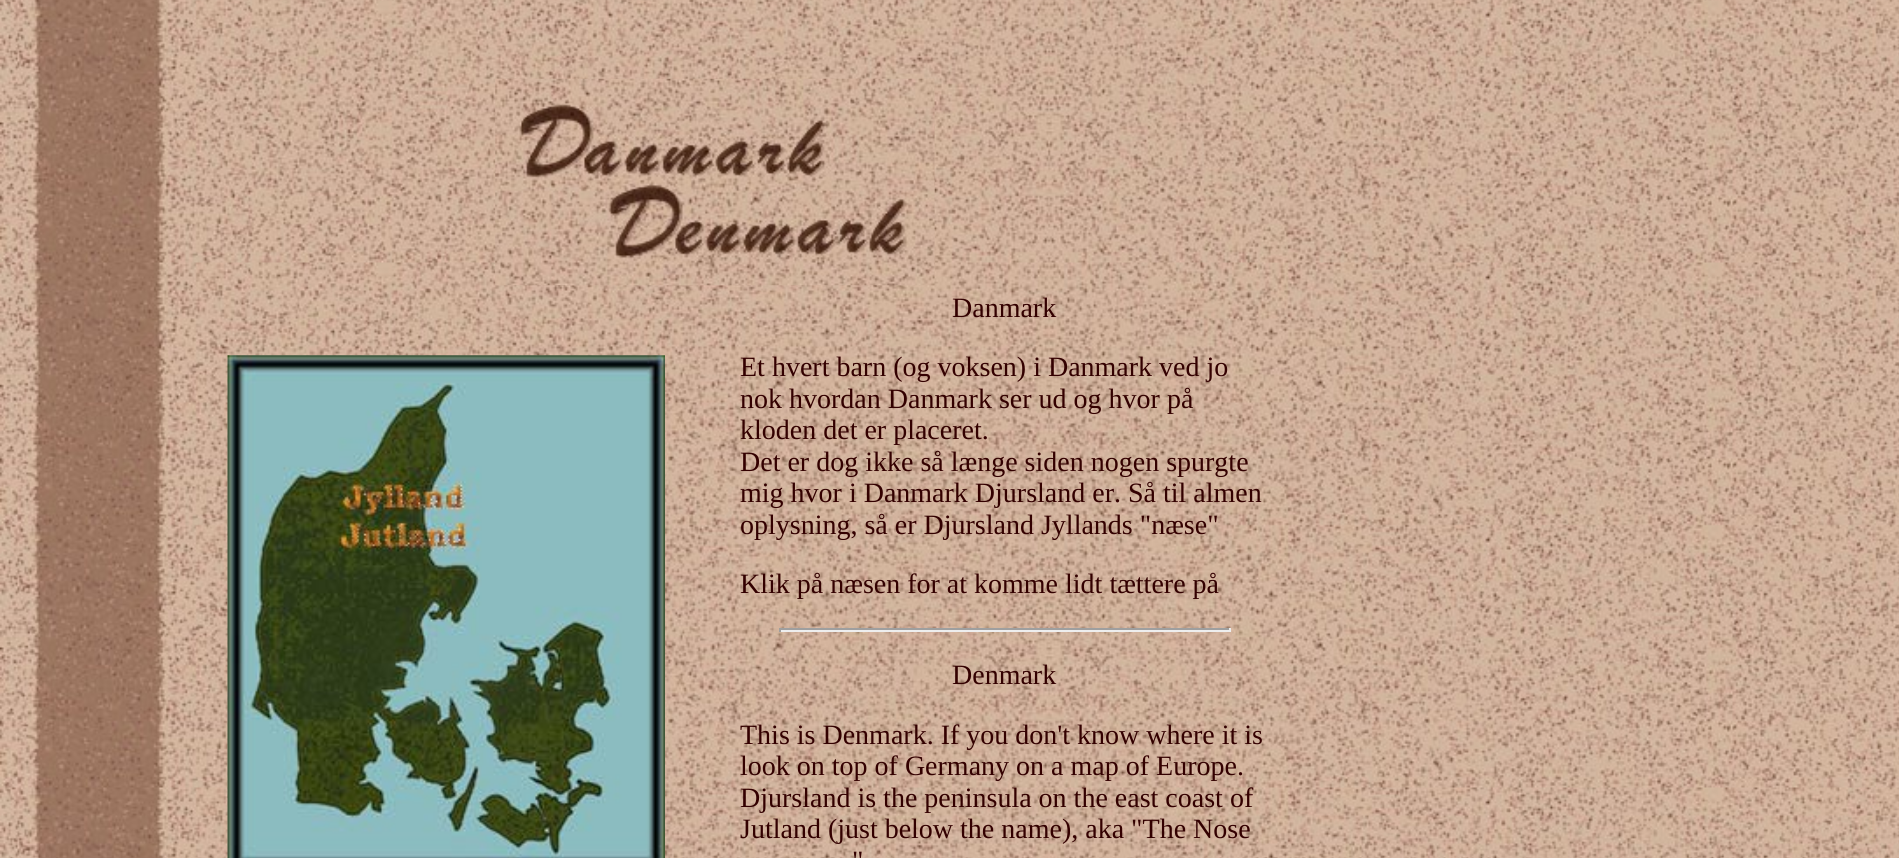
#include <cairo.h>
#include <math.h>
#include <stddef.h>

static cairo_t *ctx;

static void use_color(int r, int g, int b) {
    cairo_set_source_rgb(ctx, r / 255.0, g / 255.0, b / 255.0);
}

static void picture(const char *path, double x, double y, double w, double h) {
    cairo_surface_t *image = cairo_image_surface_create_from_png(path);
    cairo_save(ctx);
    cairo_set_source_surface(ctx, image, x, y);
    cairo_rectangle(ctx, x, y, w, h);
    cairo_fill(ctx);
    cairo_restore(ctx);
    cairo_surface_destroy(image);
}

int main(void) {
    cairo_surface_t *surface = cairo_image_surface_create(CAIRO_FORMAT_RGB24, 1899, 858);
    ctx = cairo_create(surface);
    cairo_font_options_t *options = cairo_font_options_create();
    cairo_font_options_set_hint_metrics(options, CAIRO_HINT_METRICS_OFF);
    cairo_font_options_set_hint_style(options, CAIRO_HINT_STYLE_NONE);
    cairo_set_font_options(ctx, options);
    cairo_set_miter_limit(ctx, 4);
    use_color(255, 255, 255);
    cairo_paint(ctx);
    picture("img1.png", 0, 0, 1899, 858);
    picture("img2.png", 495, 78, 440, 208);
    picture("img3.png", 227, 355, 438, 503);
    cairo_select_font_face(ctx, "Liberation Serif", CAIRO_FONT_SLANT_NORMAL, CAIRO_FONT_WEIGHT_NORMAL);
    cairo_set_font_size(ctx, 28);
    use_color(51, 0, 0);
    cairo_move_to(ctx, 952, 317);
    cairo_show_text(ctx, "Danmark");
    cairo_move_to(ctx, 740, 376);
    cairo_show_text(ctx, "Et hvert barn (og voksen) i Danmark ved jo");
    cairo_move_to(ctx, 740, 408);
    cairo_show_text(ctx, "nok hvordan Danmark ser ud og hvor på");
    cairo_move_to(ctx, 740, 439);
    cairo_show_text(ctx, "kloden det er placeret.");
    cairo_move_to(ctx, 740, 471);
    cairo_show_text(ctx, "Det er dog ikke så længe siden nogen spurgte");
    cairo_move_to(ctx, 740, 502);
    cairo_show_text(ctx, "mig hvor i Danmark Djursland er. Så til almen");
    cairo_move_to(ctx, 740, 534);
    cairo_show_text(ctx, "oplysning, så er Djursland Jyllands \"næse\"");
    cairo_move_to(ctx, 740, 593);
    cairo_show_text(ctx, "Klik på næsen for at komme lidt tættere på");
    use_color(159, 159, 159);
    cairo_rectangle(ctx, 779, 628, 451, 2);
    cairo_fill(ctx);
    use_color(238, 238, 238);
    cairo_rectangle(ctx, 1229, 628, 2, 4);
    cairo_fill(ctx);
    cairo_rectangle(ctx, 779, 630, 451, 2);
    cairo_fill(ctx);
    use_color(159, 159, 159);
    cairo_rectangle(ctx, 779, 628, 2, 4);
    cairo_fill(ctx);
    use_color(51, 0, 0);
    cairo_move_to(ctx, 952, 684);
    cairo_show_text(ctx, "Denmark");
    cairo_move_to(ctx, 740, 744);
    cairo_show_text(ctx, "This is Denmark. If you don't know where it is");
    cairo_move_to(ctx, 740, 775);
    cairo_show_text(ctx, "look on top of Germany on a map of Europe.");
    cairo_move_to(ctx, 740, 807);
    cairo_show_text(ctx, "Djursland is the peninsula on the east coast of");
    cairo_move_to(ctx, 740, 838);
    cairo_show_text(ctx, "Jutland (just below the name), aka \"The Nose");
    cairo_move_to(ctx, 852, 870);
    cairo_show_text(ctx, "\"");
    cairo_surface_write_to_png(surface, "result.png");
    cairo_font_options_destroy(options);
    cairo_destroy(ctx);
    cairo_surface_destroy(surface);
    return 0;
}
